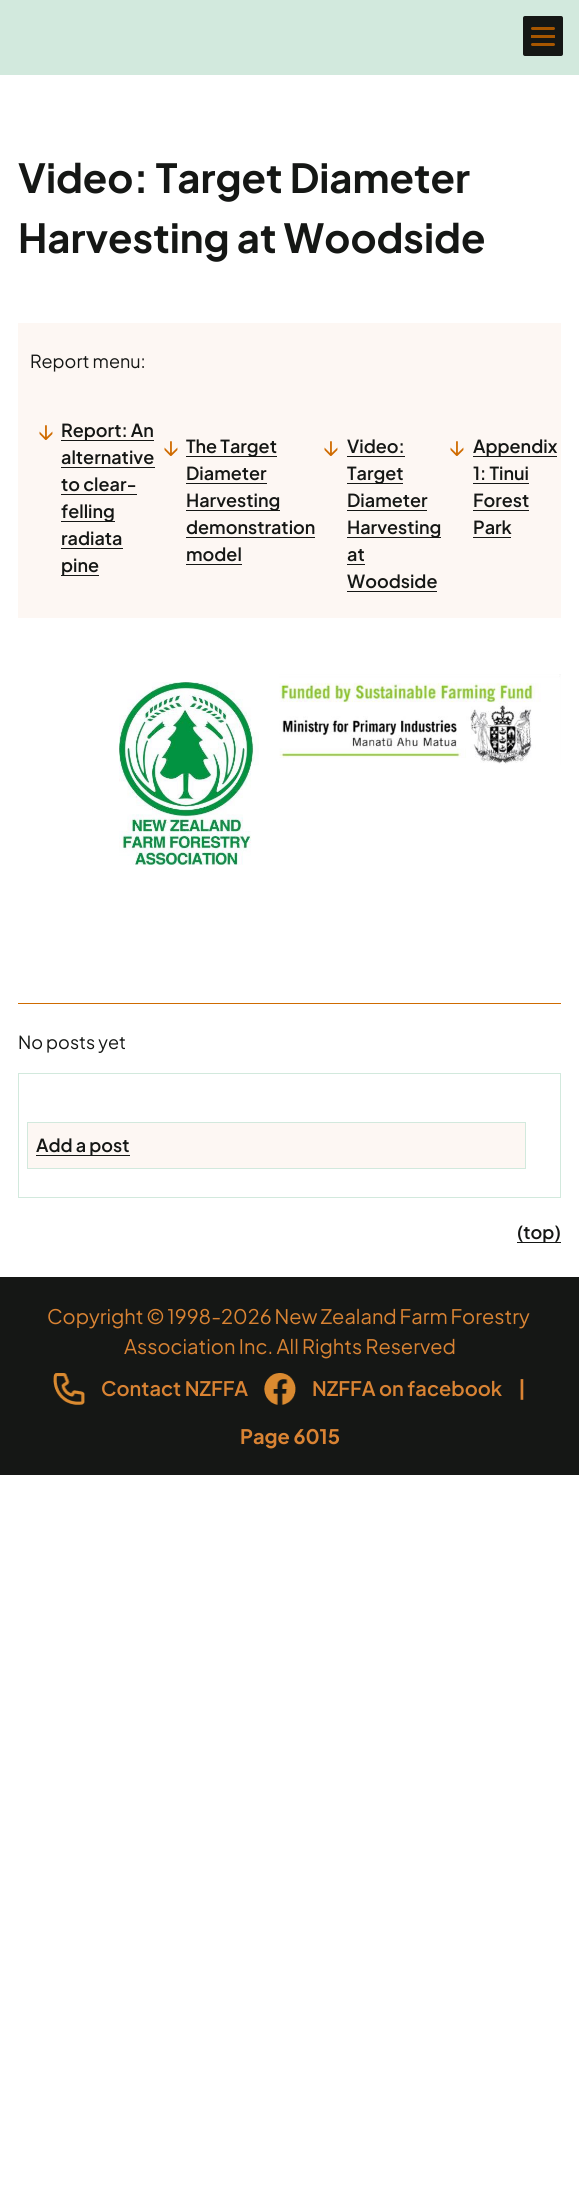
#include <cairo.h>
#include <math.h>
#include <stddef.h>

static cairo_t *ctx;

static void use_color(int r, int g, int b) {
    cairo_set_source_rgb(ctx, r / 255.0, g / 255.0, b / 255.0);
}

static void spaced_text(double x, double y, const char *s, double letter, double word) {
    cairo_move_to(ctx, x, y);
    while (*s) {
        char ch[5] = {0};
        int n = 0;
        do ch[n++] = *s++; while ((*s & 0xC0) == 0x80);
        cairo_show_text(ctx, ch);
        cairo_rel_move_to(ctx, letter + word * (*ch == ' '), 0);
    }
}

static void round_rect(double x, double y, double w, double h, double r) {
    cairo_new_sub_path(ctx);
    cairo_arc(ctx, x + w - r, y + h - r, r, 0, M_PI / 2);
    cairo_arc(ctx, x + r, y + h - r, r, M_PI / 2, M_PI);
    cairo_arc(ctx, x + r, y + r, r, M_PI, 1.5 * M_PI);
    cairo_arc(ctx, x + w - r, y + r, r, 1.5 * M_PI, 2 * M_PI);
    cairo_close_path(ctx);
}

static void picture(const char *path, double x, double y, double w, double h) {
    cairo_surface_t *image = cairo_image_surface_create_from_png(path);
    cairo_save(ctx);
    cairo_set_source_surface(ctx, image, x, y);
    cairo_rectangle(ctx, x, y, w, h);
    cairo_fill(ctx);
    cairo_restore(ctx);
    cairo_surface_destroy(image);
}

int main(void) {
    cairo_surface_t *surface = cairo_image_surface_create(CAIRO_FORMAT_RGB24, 579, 2195);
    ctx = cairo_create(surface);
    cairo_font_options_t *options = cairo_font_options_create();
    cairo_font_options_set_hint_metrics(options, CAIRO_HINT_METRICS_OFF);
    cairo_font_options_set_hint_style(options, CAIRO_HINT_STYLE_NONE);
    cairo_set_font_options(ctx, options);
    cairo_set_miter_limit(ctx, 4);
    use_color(255, 255, 255);
    cairo_paint(ctx);
    use_color(210, 233, 221);
    cairo_rectangle(ctx, 0, 0, 579, 75);
    cairo_fill(ctx);
    use_color(21, 23, 21);
    round_rect(523, 16, 40, 40, 2);
    cairo_fill(ctx);
    use_color(167, 86, 0);
    round_rect(531, 27, 24, 3, 1.5);
    cairo_fill(ctx);
    cairo_rectangle(ctx, 531, 35, 24, 3);
    cairo_fill(ctx);
    round_rect(531, 43, 24, 3, 1.5);
    cairo_fill(ctx);
    cairo_select_font_face(ctx, "Plus Jakarta Sans", CAIRO_FONT_SLANT_NORMAL, CAIRO_FONT_WEIGHT_BOLD);
    cairo_set_font_size(ctx, 40);
    use_color(21, 23, 21);
    cairo_move_to(ctx, 18, 193);
    cairo_show_text(ctx, "Video: Target Diameter");
    cairo_move_to(ctx, 18, 253);
    cairo_show_text(ctx, "Harvesting at Woodside");
    use_color(253, 247, 243);
    cairo_rectangle(ctx, 18, 323, 543, 295);
    cairo_fill(ctx);
    cairo_select_font_face(ctx, "Plus Jakarta Sans", CAIRO_FONT_SLANT_NORMAL, CAIRO_FONT_WEIGHT_NORMAL);
    cairo_set_font_size(ctx, 18);
    use_color(21, 23, 21);
    cairo_move_to(ctx, 30, 368);
    cairo_show_text(ctx, "Report menu:");
    cairo_set_font_size(ctx, 24);
    use_color(207, 107, 0);
    cairo_move_to(ctx, 38, 440);
    cairo_show_text(ctx, "↓");
    use_color(21, 23, 21);
    cairo_rectangle(ctx, 61, 440, 93, 1);
    cairo_fill(ctx);
    cairo_select_font_face(ctx, "Plus Jakarta Sans SemiBold", CAIRO_FONT_SLANT_NORMAL, CAIRO_FONT_WEIGHT_NORMAL);
    cairo_set_font_size(ctx, 18);
    cairo_move_to(ctx, 61, 437);
    cairo_show_text(ctx, "Report: An");
    cairo_move_to(ctx, 61, 464);
    cairo_show_text(ctx, "alternative");
    cairo_rectangle(ctx, 61, 467, 94, 1);
    cairo_fill(ctx);
    cairo_move_to(ctx, 61, 491);
    cairo_show_text(ctx, "to clear-");
    cairo_rectangle(ctx, 61, 494, 76, 1);
    cairo_fill(ctx);
    cairo_rectangle(ctx, 61, 521, 54, 1);
    cairo_fill(ctx);
    cairo_move_to(ctx, 61, 518);
    cairo_show_text(ctx, "felling");
    cairo_move_to(ctx, 61, 545);
    cairo_show_text(ctx, "radiata");
    cairo_rectangle(ctx, 61, 548, 62, 1);
    cairo_fill(ctx);
    cairo_rectangle(ctx, 61, 575, 38, 1);
    cairo_fill(ctx);
    cairo_move_to(ctx, 61, 572);
    cairo_show_text(ctx, "pine");
    cairo_select_font_face(ctx, "Plus Jakarta Sans", CAIRO_FONT_SLANT_NORMAL, CAIRO_FONT_WEIGHT_NORMAL);
    cairo_set_font_size(ctx, 24);
    use_color(207, 107, 0);
    cairo_move_to(ctx, 163, 456);
    cairo_show_text(ctx, "↓");
    use_color(21, 23, 21);
    cairo_rectangle(ctx, 186, 456, 91, 1);
    cairo_fill(ctx);
    cairo_select_font_face(ctx, "Plus Jakarta Sans SemiBold", CAIRO_FONT_SLANT_NORMAL, CAIRO_FONT_WEIGHT_NORMAL);
    cairo_set_font_size(ctx, 18);
    cairo_move_to(ctx, 186, 453);
    cairo_show_text(ctx, "The Target");
    cairo_move_to(ctx, 186, 480);
    cairo_show_text(ctx, "Diameter");
    cairo_rectangle(ctx, 186, 483, 81, 1);
    cairo_fill(ctx);
    cairo_rectangle(ctx, 186, 510, 94, 1);
    cairo_fill(ctx);
    cairo_move_to(ctx, 186, 507);
    cairo_show_text(ctx, "Harvesting");
    cairo_move_to(ctx, 186, 534);
    cairo_show_text(ctx, "demonstration");
    cairo_rectangle(ctx, 186, 537, 129, 1);
    cairo_fill(ctx);
    cairo_move_to(ctx, 186, 561);
    cairo_show_text(ctx, "model");
    cairo_rectangle(ctx, 186, 564, 56, 1);
    cairo_fill(ctx);
    cairo_select_font_face(ctx, "Plus Jakarta Sans", CAIRO_FONT_SLANT_NORMAL, CAIRO_FONT_WEIGHT_NORMAL);
    cairo_set_font_size(ctx, 24);
    use_color(207, 107, 0);
    cairo_move_to(ctx, 323, 456);
    cairo_show_text(ctx, "↓");
    cairo_select_font_face(ctx, "Plus Jakarta Sans SemiBold", CAIRO_FONT_SLANT_NORMAL, CAIRO_FONT_WEIGHT_NORMAL);
    cairo_set_font_size(ctx, 18);
    use_color(21, 23, 21);
    cairo_move_to(ctx, 347, 453);
    cairo_show_text(ctx, "Video:");
    cairo_rectangle(ctx, 347, 456, 58, 1);
    cairo_fill(ctx);
    cairo_rectangle(ctx, 347, 483, 56, 1);
    cairo_fill(ctx);
    cairo_move_to(ctx, 347, 480);
    cairo_show_text(ctx, "Target");
    cairo_move_to(ctx, 347, 507);
    cairo_show_text(ctx, "Diameter");
    cairo_rectangle(ctx, 347, 510, 80, 1);
    cairo_fill(ctx);
    cairo_rectangle(ctx, 347, 537, 94, 1);
    cairo_fill(ctx);
    cairo_move_to(ctx, 347, 534);
    cairo_show_text(ctx, "Harvesting");
    cairo_move_to(ctx, 347, 561);
    cairo_show_text(ctx, "at");
    cairo_rectangle(ctx, 347, 564, 18, 1);
    cairo_fill(ctx);
    cairo_move_to(ctx, 347, 588);
    cairo_show_text(ctx, "Woodside");
    cairo_rectangle(ctx, 347, 591, 90, 1);
    cairo_fill(ctx);
    cairo_select_font_face(ctx, "Plus Jakarta Sans", CAIRO_FONT_SLANT_NORMAL, CAIRO_FONT_WEIGHT_NORMAL);
    cairo_set_font_size(ctx, 24);
    use_color(207, 107, 0);
    cairo_move_to(ctx, 449, 456);
    cairo_show_text(ctx, "↓");
    use_color(21, 23, 21);
    cairo_rectangle(ctx, 473, 456, 84, 1);
    cairo_fill(ctx);
    cairo_select_font_face(ctx, "Plus Jakarta Sans SemiBold", CAIRO_FONT_SLANT_NORMAL, CAIRO_FONT_WEIGHT_NORMAL);
    cairo_set_font_size(ctx, 18);
    cairo_move_to(ctx, 473, 453);
    cairo_show_text(ctx, "Appendix");
    cairo_move_to(ctx, 473, 480);
    cairo_show_text(ctx, "1: Tinui");
    cairo_rectangle(ctx, 473, 483, 56, 1);
    cairo_fill(ctx);
    cairo_move_to(ctx, 473, 507);
    cairo_show_text(ctx, "Forest");
    cairo_rectangle(ctx, 473, 510, 56, 1);
    cairo_fill(ctx);
    cairo_move_to(ctx, 473, 534);
    cairo_show_text(ctx, "Park");
    cairo_rectangle(ctx, 473, 537, 38, 1);
    cairo_fill(ctx);
    picture("img1.png", 119, 682, 140, 183);
    picture("img2.png", 279, 674, 282, 91);
    use_color(207, 107, 0);
    cairo_rectangle(ctx, 18, 1003, 543, 1);
    cairo_fill(ctx);
    cairo_select_font_face(ctx, "Plus Jakarta Sans", CAIRO_FONT_SLANT_NORMAL, CAIRO_FONT_WEIGHT_NORMAL);
    use_color(21, 23, 21);
    cairo_move_to(ctx, 18, 1049);
    cairo_show_text(ctx, "No posts yet");
    cairo_rectangle(ctx, 18.5, 1073.5, 542, 124);
    use_color(210, 233, 221);
    cairo_set_line_width(ctx, 1);
    cairo_stroke(ctx);
    use_color(253, 247, 243);
    cairo_rectangle(ctx, 27.5, 1122.5, 498, 46);
    cairo_fill_preserve(ctx);
    use_color(210, 233, 221);
    cairo_stroke(ctx);
    use_color(21, 23, 21);
    cairo_rectangle(ctx, 36, 1155, 94, 1);
    cairo_fill(ctx);
    cairo_select_font_face(ctx, "Plus Jakarta Sans SemiBold", CAIRO_FONT_SLANT_NORMAL, CAIRO_FONT_WEIGHT_NORMAL);
    cairo_move_to(ctx, 36, 1152);
    cairo_show_text(ctx, "Add a post");
    cairo_rectangle(ctx, 517, 1242, 44, 1);
    cairo_fill(ctx);
    cairo_move_to(ctx, 517, 1239);
    cairo_show_text(ctx, "(top)");
    cairo_rectangle(ctx, 0, 1277, 579, 198);
    cairo_fill(ctx);
    cairo_select_font_face(ctx, "Plus Jakarta Sans", CAIRO_FONT_SLANT_NORMAL, CAIRO_FONT_WEIGHT_NORMAL);
    cairo_set_font_size(ctx, 20);
    use_color(217, 131, 51);
    spaced_text(47, 1324, "Copyright © 1998-2026 New Zealand Farm Forestry", 0, -0.5);
    cairo_move_to(ctx, 124, 1354);
    cairo_show_text(ctx, "Association Inc. All Rights Reserved");
    picture("img3.png", 53, 1373, 32, 32);
    cairo_select_font_face(ctx, "Plus Jakarta Sans SemiBold", CAIRO_FONT_SLANT_NORMAL, CAIRO_FONT_WEIGHT_NORMAL);
    cairo_move_to(ctx, 101, 1396);
    cairo_show_text(ctx, "Contact NZFFA");
    picture("img4.png", 264, 1373, 32, 32);
    cairo_move_to(ctx, 312, 1396);
    cairo_show_text(ctx, "NZFFA on facebook");
    cairo_select_font_face(ctx, "Plus Jakarta Sans", CAIRO_FONT_SLANT_NORMAL, CAIRO_FONT_WEIGHT_BOLD);
    cairo_move_to(ctx, 518, 1396);
    cairo_show_text(ctx, "|");
    cairo_move_to(ctx, 240, 1444);
    cairo_show_text(ctx, "Page 6015");
    cairo_surface_write_to_png(surface, "result.png");
    cairo_font_options_destroy(options);
    cairo_destroy(ctx);
    cairo_surface_destroy(surface);
    return 0;
}
